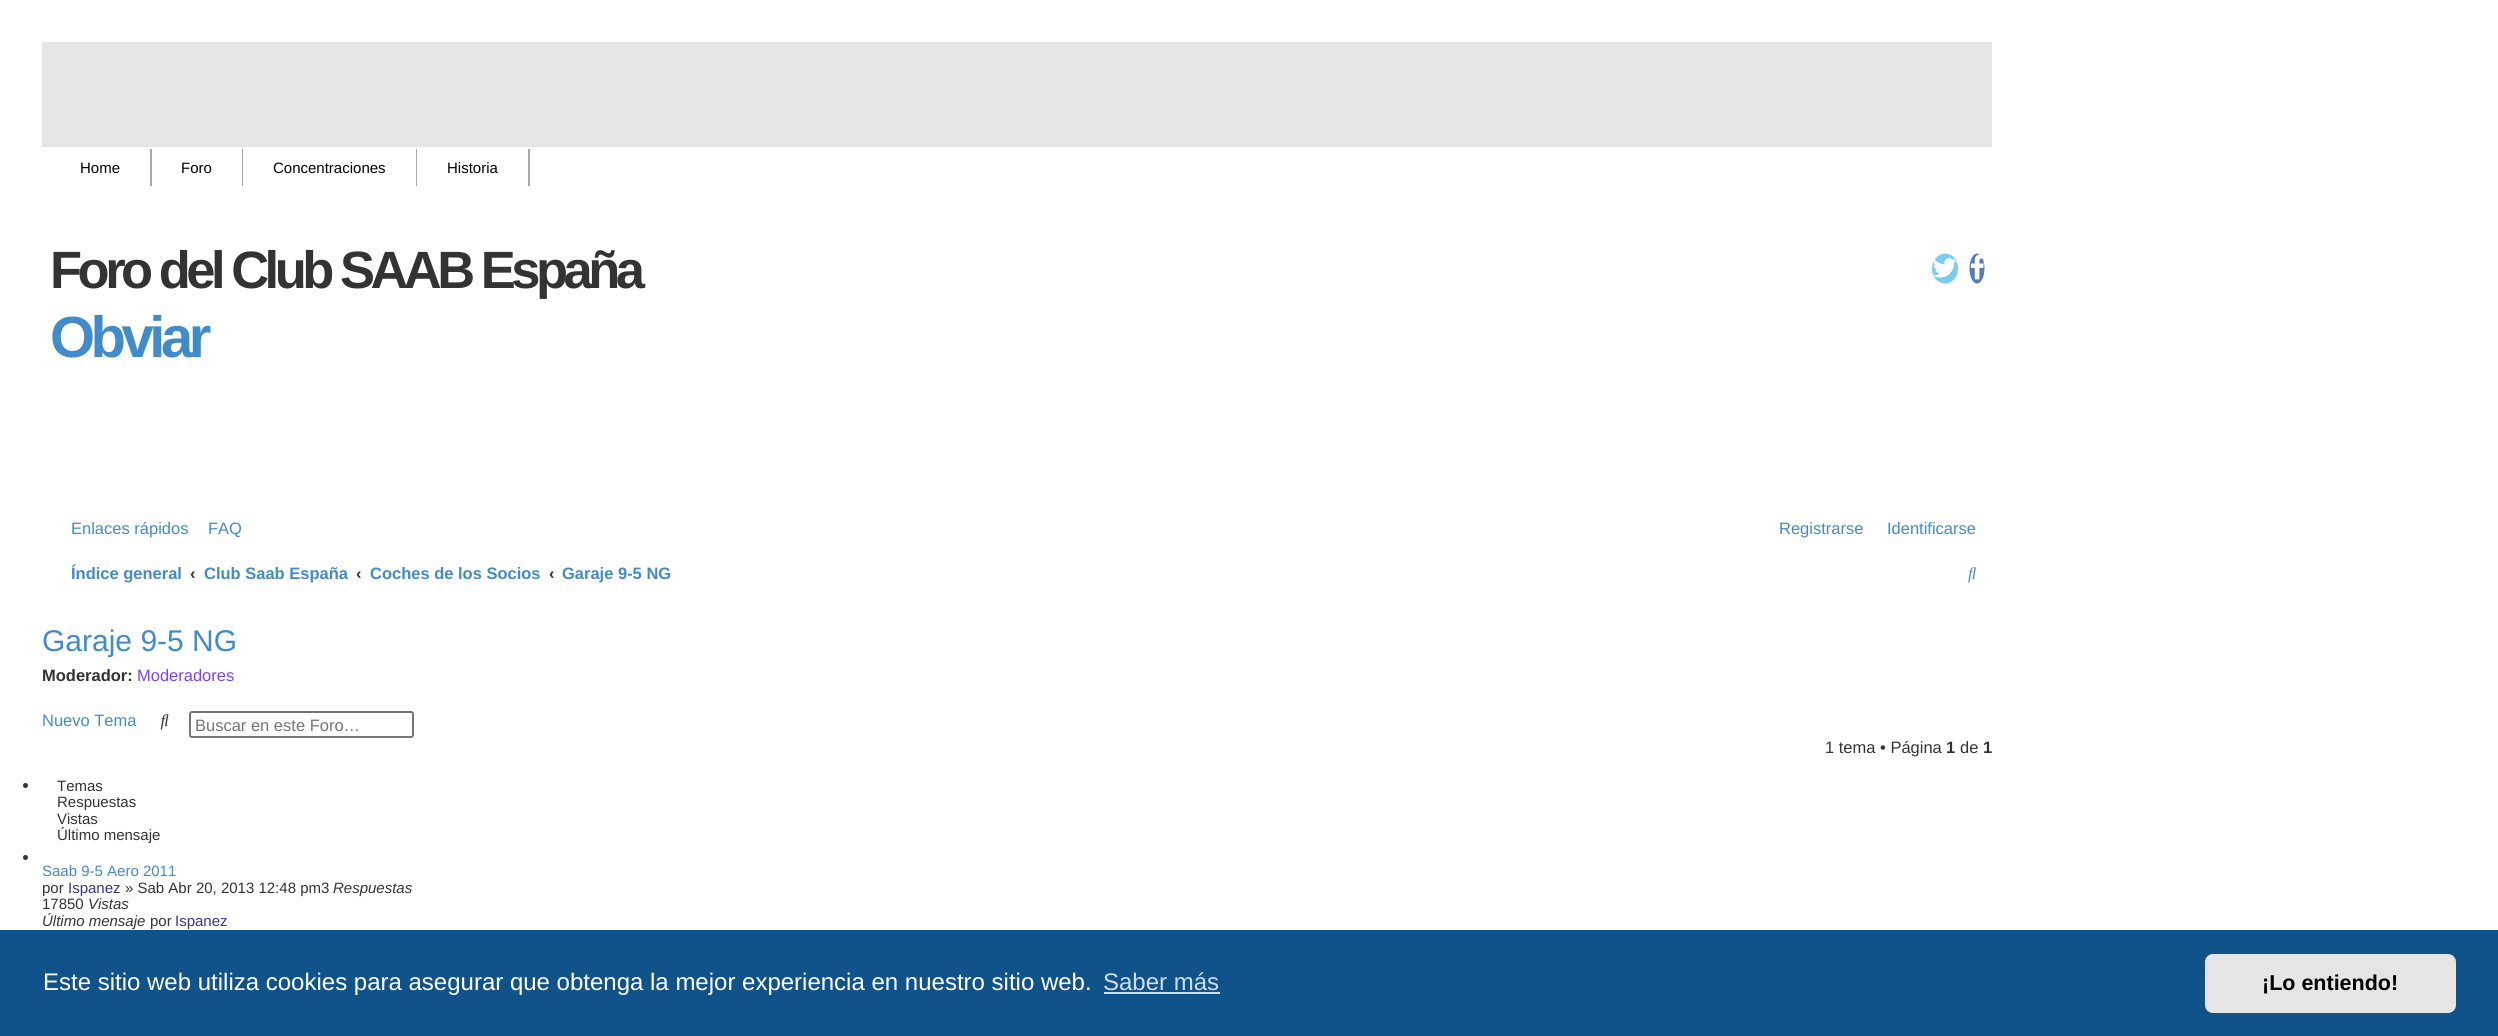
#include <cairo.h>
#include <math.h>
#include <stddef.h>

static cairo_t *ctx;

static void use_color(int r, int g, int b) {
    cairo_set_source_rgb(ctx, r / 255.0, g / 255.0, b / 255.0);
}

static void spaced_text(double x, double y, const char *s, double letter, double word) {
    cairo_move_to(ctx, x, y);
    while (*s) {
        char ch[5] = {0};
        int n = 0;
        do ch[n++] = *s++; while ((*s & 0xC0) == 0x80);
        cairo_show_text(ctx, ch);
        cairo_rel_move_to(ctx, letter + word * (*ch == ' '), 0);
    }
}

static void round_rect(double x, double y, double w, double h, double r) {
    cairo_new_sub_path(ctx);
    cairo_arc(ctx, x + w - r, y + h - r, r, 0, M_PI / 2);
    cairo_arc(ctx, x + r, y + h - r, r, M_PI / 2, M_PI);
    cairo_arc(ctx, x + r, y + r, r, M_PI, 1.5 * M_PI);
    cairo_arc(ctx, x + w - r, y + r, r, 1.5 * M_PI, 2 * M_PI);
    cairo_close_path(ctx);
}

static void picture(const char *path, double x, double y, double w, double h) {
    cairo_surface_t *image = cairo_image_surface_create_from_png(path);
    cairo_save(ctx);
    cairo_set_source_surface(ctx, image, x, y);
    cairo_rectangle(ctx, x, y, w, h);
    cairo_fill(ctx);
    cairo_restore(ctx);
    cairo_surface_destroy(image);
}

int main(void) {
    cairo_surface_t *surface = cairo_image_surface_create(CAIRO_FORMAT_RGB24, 2498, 1036);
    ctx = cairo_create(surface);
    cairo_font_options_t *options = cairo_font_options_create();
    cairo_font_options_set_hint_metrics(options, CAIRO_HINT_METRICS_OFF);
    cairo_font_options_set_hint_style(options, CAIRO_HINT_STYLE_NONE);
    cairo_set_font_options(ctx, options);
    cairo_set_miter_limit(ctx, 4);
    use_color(255, 255, 255);
    cairo_paint(ctx);
    use_color(229, 229, 229);
    cairo_rectangle(ctx, 42, 42, 1950, 105);
    cairo_fill(ctx);
    use_color(168, 168, 168);
    cairo_rectangle(ctx, 150, 149, 2, 37);
    cairo_fill(ctx);
    cairo_select_font_face(ctx, "Liberation Sans", CAIRO_FONT_SLANT_NORMAL, CAIRO_FONT_WEIGHT_NORMAL);
    cairo_set_font_size(ctx, 15);
    use_color(0, 0, 0);
    cairo_move_to(ctx, 80, 173);
    cairo_show_text(ctx, "Home");
    use_color(168, 168, 168);
    cairo_rectangle(ctx, 242, 149, 1, 37);
    cairo_fill(ctx);
    use_color(0, 0, 0);
    cairo_move_to(ctx, 181, 173);
    cairo_show_text(ctx, "Foro");
    use_color(168, 168, 168);
    cairo_rectangle(ctx, 416, 149, 1, 37);
    cairo_fill(ctx);
    use_color(0, 0, 0);
    cairo_move_to(ctx, 273, 173);
    cairo_show_text(ctx, "Concentraciones");
    use_color(168, 168, 168);
    cairo_rectangle(ctx, 528, 149, 2, 37);
    cairo_fill(ctx);
    use_color(0, 0, 0);
    cairo_move_to(ctx, 447, 173);
    cairo_show_text(ctx, "Historia");
    cairo_select_font_face(ctx, "Liberation Sans", CAIRO_FONT_SLANT_NORMAL, CAIRO_FONT_WEIGHT_BOLD);
    cairo_set_font_size(ctx, 52.5);
    use_color(51, 51, 51);
    spaced_text(50, 288, "Foro del Club SAAB España", -4.5, 0);
    cairo_set_font_size(ctx, 58);
    use_color(66, 139, 202);
    spaced_text(50, 357, "Obviar", -4.5, 0);
    use_color(120, 205, 240);
    cairo_new_path(ctx);
    cairo_move_to(ctx, 1945, 253.5);
    cairo_curve_to(ctx, 1952, 253.5, 1958, 260, 1958, 268.5);
    cairo_curve_to(ctx, 1958, 277, 1952, 283.5, 1945, 283.5);
    cairo_curve_to(ctx, 1938, 283.5, 1932, 277, 1932, 268.5);
    cairo_curve_to(ctx, 1932, 260, 1938, 253.5, 1945, 253.5);
    cairo_close_path(ctx);
    cairo_fill(ctx);
    picture("img1.png", 1933, 258, 23, 20);
    use_color(83, 123, 189);
    cairo_new_path(ctx);
    cairo_move_to(ctx, 1977, 253.5);
    cairo_curve_to(ctx, 1981, 253.5, 1984.5, 260, 1984.5, 268.5);
    cairo_curve_to(ctx, 1984.5, 277, 1981, 283.5, 1977, 283.5);
    cairo_curve_to(ctx, 1973, 283.5, 1969.5, 277, 1969.5, 268.5);
    cairo_curve_to(ctx, 1969.5, 260, 1973, 253.5, 1977, 253.5);
    cairo_close_path(ctx);
    cairo_fill(ctx);
    picture("img2.png", 1970, 254, 14, 26);
    cairo_select_font_face(ctx, "Liberation Sans", CAIRO_FONT_SLANT_NORMAL, CAIRO_FONT_WEIGHT_NORMAL);
    cairo_set_font_size(ctx, 16.5);
    use_color(66, 139, 202);
    cairo_move_to(ctx, 71, 534);
    cairo_show_text(ctx, "Enlaces rápidos");
    cairo_move_to(ctx, 208, 534);
    cairo_show_text(ctx, "FAQ");
    cairo_move_to(ctx, 1779, 534);
    cairo_show_text(ctx, "Registrarse");
    cairo_move_to(ctx, 1887, 534);
    cairo_show_text(ctx, "Identificarse");
    cairo_select_font_face(ctx, "Liberation Sans", CAIRO_FONT_SLANT_NORMAL, CAIRO_FONT_WEIGHT_BOLD);
    cairo_move_to(ctx, 71, 579);
    cairo_show_text(ctx, "Índice general");
    use_color(51, 51, 51);
    cairo_move_to(ctx, 190, 579);
    cairo_show_text(ctx, "‹");
    use_color(66, 139, 202);
    cairo_move_to(ctx, 204, 579);
    cairo_show_text(ctx, "Club Saab España");
    use_color(51, 51, 51);
    cairo_move_to(ctx, 356, 579);
    cairo_show_text(ctx, "‹");
    use_color(66, 139, 202);
    cairo_move_to(ctx, 370, 579);
    cairo_show_text(ctx, "Coches de los Socios");
    use_color(51, 51, 51);
    cairo_move_to(ctx, 549, 579);
    cairo_show_text(ctx, "‹");
    use_color(66, 139, 202);
    cairo_move_to(ctx, 562, 579);
    cairo_show_text(ctx, "Garaje 9-5 NG");
    picture("img3.png", 1968, 567, 8, 16);
    cairo_select_font_face(ctx, "Liberation Sans", CAIRO_FONT_SLANT_NORMAL, CAIRO_FONT_WEIGHT_NORMAL);
    cairo_set_font_size(ctx, 30);
    cairo_move_to(ctx, 42, 651);
    cairo_show_text(ctx, "Garaje 9-5 NG");
    cairo_select_font_face(ctx, "Liberation Sans", CAIRO_FONT_SLANT_NORMAL, CAIRO_FONT_WEIGHT_BOLD);
    cairo_set_font_size(ctx, 16.5);
    use_color(51, 51, 51);
    cairo_move_to(ctx, 42, 681);
    cairo_show_text(ctx, "Moderador:");
    cairo_select_font_face(ctx, "Liberation Sans", CAIRO_FONT_SLANT_NORMAL, CAIRO_FONT_WEIGHT_NORMAL);
    use_color(128, 64, 255);
    cairo_move_to(ctx, 137, 681);
    cairo_show_text(ctx, "Moderadores");
    use_color(66, 139, 202);
    cairo_move_to(ctx, 42, 726);
    cairo_show_text(ctx, "Nuevo Tema");
    picture("img4.png", 160, 714, 9, 16);
    round_rect(190, 712, 223, 25, 2);
    use_color(118, 118, 118);
    cairo_stroke(ctx);
    use_color(117, 117, 117);
    cairo_move_to(ctx, 195, 731);
    cairo_show_text(ctx, "Buscar en este Foro…");
    use_color(51, 51, 51);
    cairo_move_to(ctx, 1825, 753);
    cairo_show_text(ctx, "1 tema • Página");
    cairo_select_font_face(ctx, "Liberation Sans", CAIRO_FONT_SLANT_NORMAL, CAIRO_FONT_WEIGHT_BOLD);
    cairo_move_to(ctx, 1946, 753);
    cairo_show_text(ctx, "1");
    cairo_select_font_face(ctx, "Liberation Sans", CAIRO_FONT_SLANT_NORMAL, CAIRO_FONT_WEIGHT_NORMAL);
    cairo_move_to(ctx, 1960, 753);
    cairo_show_text(ctx, "de");
    cairo_select_font_face(ctx, "Liberation Sans", CAIRO_FONT_SLANT_NORMAL, CAIRO_FONT_WEIGHT_BOLD);
    cairo_move_to(ctx, 1983, 753);
    cairo_show_text(ctx, "1");
    cairo_new_path(ctx);
    cairo_arc(ctx, 25.5, 785.5, 2.5, 0, 2 * M_PI);
    cairo_fill(ctx);
    cairo_select_font_face(ctx, "Liberation Sans", CAIRO_FONT_SLANT_NORMAL, CAIRO_FONT_WEIGHT_NORMAL);
    cairo_set_font_size(ctx, 15);
    cairo_move_to(ctx, 57, 791);
    cairo_show_text(ctx, "Temas");
    cairo_move_to(ctx, 57, 807);
    cairo_show_text(ctx, "Respuestas");
    cairo_move_to(ctx, 57, 824);
    cairo_show_text(ctx, "Vistas");
    cairo_move_to(ctx, 57, 840);
    cairo_show_text(ctx, "Último mensaje");
    cairo_new_path(ctx);
    cairo_arc(ctx, 25.5, 857.5, 2.5, 0, 2 * M_PI);
    cairo_fill(ctx);
    use_color(66, 139, 202);
    cairo_move_to(ctx, 42, 876);
    cairo_show_text(ctx, "Saab 9-5 Aero 2011");
    use_color(51, 51, 51);
    cairo_move_to(ctx, 42, 893);
    cairo_show_text(ctx, "por");
    use_color(51, 51, 153);
    cairo_move_to(ctx, 68, 893);
    cairo_show_text(ctx, "Ispanez");
    use_color(51, 51, 51);
    cairo_move_to(ctx, 125, 893);
    cairo_show_text(ctx, "» Sab Abr 20, 2013 12:48 pm3");
    cairo_select_font_face(ctx, "Liberation Sans", CAIRO_FONT_SLANT_ITALIC, CAIRO_FONT_WEIGHT_NORMAL);
    cairo_move_to(ctx, 333, 893);
    cairo_show_text(ctx, "Respuestas");
    cairo_select_font_face(ctx, "Liberation Sans", CAIRO_FONT_SLANT_NORMAL, CAIRO_FONT_WEIGHT_NORMAL);
    cairo_move_to(ctx, 42, 909);
    cairo_show_text(ctx, "17850");
    cairo_select_font_face(ctx, "Liberation Sans", CAIRO_FONT_SLANT_ITALIC, CAIRO_FONT_WEIGHT_NORMAL);
    cairo_move_to(ctx, 88, 909);
    cairo_show_text(ctx, "Vistas");
    cairo_move_to(ctx, 42, 926);
    cairo_show_text(ctx, "Último mensaje");
    cairo_select_font_face(ctx, "Liberation Sans", CAIRO_FONT_SLANT_NORMAL, CAIRO_FONT_WEIGHT_NORMAL);
    cairo_move_to(ctx, 150, 926);
    cairo_show_text(ctx, "por");
    use_color(51, 51, 153);
    cairo_move_to(ctx, 175, 926);
    cairo_show_text(ctx, "Ispanez");
    use_color(15, 83, 138);
    cairo_rectangle(ctx, 0, 930, 2498, 106);
    cairo_fill(ctx);
    cairo_set_font_size(ctx, 24);
    use_color(255, 255, 255);
    cairo_move_to(ctx, 43, 990);
    cairo_show_text(ctx, "Este sitio web utiliza cookies para asegurar que obtenga la mejor experiencia en nuestro sitio web.");
    use_color(207, 221, 232);
    cairo_move_to(ctx, 1103, 990);
    cairo_show_text(ctx, "Saber más");
    cairo_rectangle(ctx, 1104, 992, 116, 2);
    cairo_fill(ctx);
    use_color(229, 229, 229);
    round_rect(2205, 954, 251, 59, 8);
    cairo_fill(ctx);
    cairo_select_font_face(ctx, "Liberation Sans", CAIRO_FONT_SLANT_NORMAL, CAIRO_FONT_WEIGHT_BOLD);
    cairo_set_font_size(ctx, 21.5);
    use_color(0, 0, 0);
    cairo_move_to(ctx, 2262, 990);
    cairo_show_text(ctx, "¡Lo entiendo!");
    cairo_surface_write_to_png(surface, "result.png");
    cairo_font_options_destroy(options);
    cairo_destroy(ctx);
    cairo_surface_destroy(surface);
    return 0;
}
